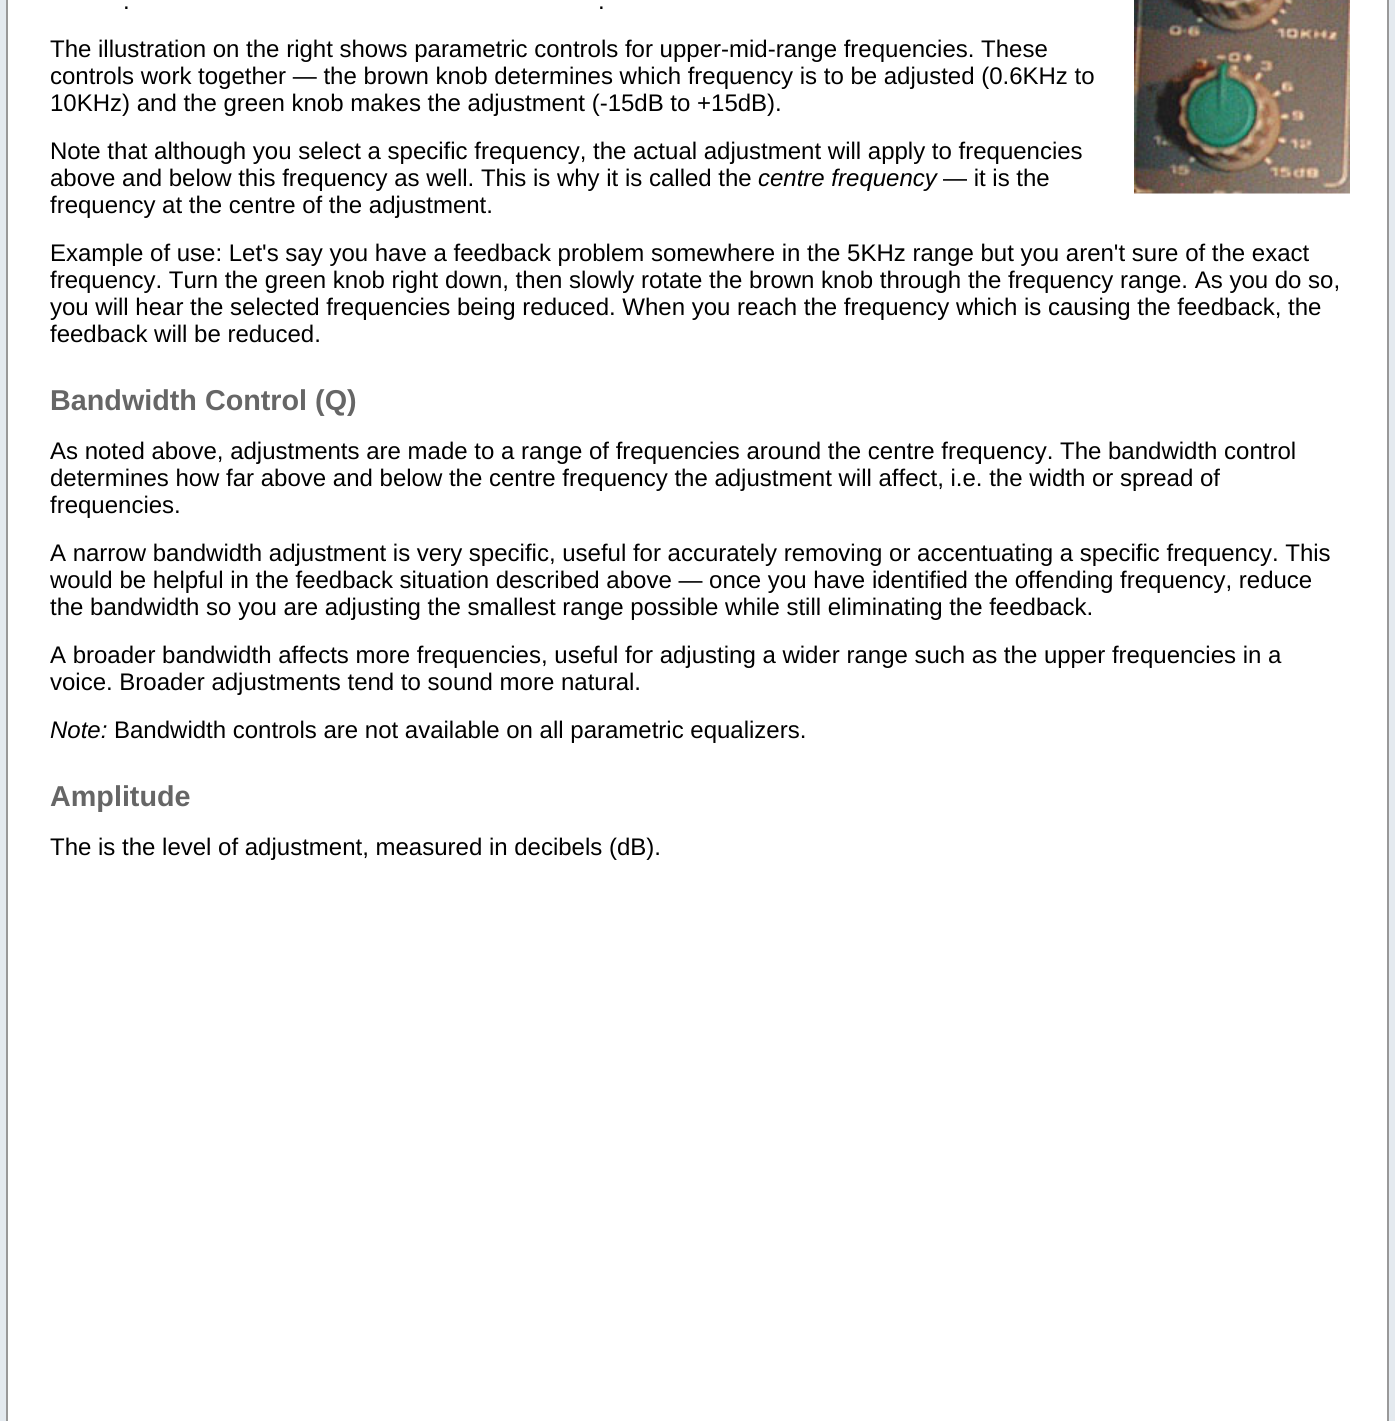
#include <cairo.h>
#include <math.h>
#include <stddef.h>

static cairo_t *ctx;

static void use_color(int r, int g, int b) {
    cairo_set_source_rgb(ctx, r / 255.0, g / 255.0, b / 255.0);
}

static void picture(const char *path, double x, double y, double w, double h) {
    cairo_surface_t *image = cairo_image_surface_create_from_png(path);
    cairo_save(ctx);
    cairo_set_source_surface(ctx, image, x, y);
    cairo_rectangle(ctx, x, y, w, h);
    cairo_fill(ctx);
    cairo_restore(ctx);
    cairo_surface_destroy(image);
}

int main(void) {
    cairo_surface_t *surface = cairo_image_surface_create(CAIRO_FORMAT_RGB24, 1395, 1421);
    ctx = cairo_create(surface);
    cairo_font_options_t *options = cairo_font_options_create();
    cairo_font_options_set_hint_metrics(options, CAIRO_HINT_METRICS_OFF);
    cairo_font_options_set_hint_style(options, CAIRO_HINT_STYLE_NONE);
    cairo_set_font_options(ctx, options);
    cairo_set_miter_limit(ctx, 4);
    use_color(228, 234, 239);
    cairo_paint(ctx);
    use_color(255, 255, 255);
    cairo_rectangle(ctx, 7, -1, 1381, 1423);
    cairo_fill_preserve(ctx);
    use_color(153, 153, 153);
    cairo_stroke(ctx);
    cairo_select_font_face(ctx, "Liberation Sans", CAIRO_FONT_SLANT_NORMAL, CAIRO_FONT_WEIGHT_NORMAL);
    cairo_set_font_size(ctx, 24);
    use_color(0, 0, 0);
    cairo_move_to(ctx, 123, 9);
    cairo_show_text(ctx, ".");
    cairo_move_to(ctx, 598, 9);
    cairo_show_text(ctx, ".");
    picture("img1.png", 1134, 0, 216, 194);
    cairo_move_to(ctx, 50, 57);
    cairo_show_text(ctx, "The illustration on the right shows parametric controls for upper-mid-range frequencies. These");
    cairo_move_to(ctx, 50, 84);
    cairo_show_text(ctx, "controls work together — the brown knob determines which frequency is to be adjusted (0.6KHz to");
    cairo_move_to(ctx, 50, 111);
    cairo_show_text(ctx, "10KHz) and the green knob makes the adjustment (-15dB to +15dB).");
    cairo_move_to(ctx, 50, 159);
    cairo_show_text(ctx, "Note that although you select a specific frequency, the actual adjustment will apply to frequencies");
    cairo_move_to(ctx, 50, 186);
    cairo_show_text(ctx, "above and below this frequency as well. This is why it is called the");
    cairo_select_font_face(ctx, "Liberation Sans", CAIRO_FONT_SLANT_ITALIC, CAIRO_FONT_WEIGHT_NORMAL);
    cairo_move_to(ctx, 758, 186);
    cairo_show_text(ctx, "centre frequency");
    cairo_select_font_face(ctx, "Liberation Sans", CAIRO_FONT_SLANT_NORMAL, CAIRO_FONT_WEIGHT_NORMAL);
    cairo_move_to(ctx, 943, 186);
    cairo_show_text(ctx, "— it is the");
    cairo_move_to(ctx, 50, 213);
    cairo_show_text(ctx, "frequency at the centre of the adjustment.");
    cairo_move_to(ctx, 50, 261);
    cairo_show_text(ctx, "Example of use: Let's say you have a feedback problem somewhere in the 5KHz range but you aren't sure of the exact");
    cairo_move_to(ctx, 50, 288);
    cairo_show_text(ctx, "frequency. Turn the green knob right down, then slowly rotate the brown knob through the frequency range. As you do so,");
    cairo_move_to(ctx, 50, 315);
    cairo_show_text(ctx, "you will hear the selected frequencies being reduced. When you reach the frequency which is causing the feedback, the");
    cairo_move_to(ctx, 50, 342);
    cairo_show_text(ctx, "feedback will be reduced.");
    cairo_select_font_face(ctx, "Liberation Sans", CAIRO_FONT_SLANT_NORMAL, CAIRO_FONT_WEIGHT_BOLD);
    cairo_set_font_size(ctx, 28.75);
    use_color(102, 102, 102);
    cairo_move_to(ctx, 50, 410);
    cairo_show_text(ctx, "Bandwidth Control (Q)");
    cairo_select_font_face(ctx, "Liberation Sans", CAIRO_FONT_SLANT_NORMAL, CAIRO_FONT_WEIGHT_NORMAL);
    cairo_set_font_size(ctx, 24);
    use_color(0, 0, 0);
    cairo_move_to(ctx, 50, 459);
    cairo_show_text(ctx, "As noted above, adjustments are made to a range of frequencies around the centre frequency. The bandwidth control");
    cairo_move_to(ctx, 50, 486);
    cairo_show_text(ctx, "determines how far above and below the centre frequency the adjustment will affect, i.e. the width or spread of");
    cairo_move_to(ctx, 50, 513);
    cairo_show_text(ctx, "frequencies.");
    cairo_move_to(ctx, 50, 561);
    cairo_show_text(ctx, "A narrow bandwidth adjustment is very specific, useful for accurately removing or accentuating a specific frequency. This");
    cairo_move_to(ctx, 50, 588);
    cairo_show_text(ctx, "would be helpful in the feedback situation described above — once you have identified the offending frequency, reduce");
    cairo_move_to(ctx, 50, 615);
    cairo_show_text(ctx, "the bandwidth so you are adjusting the smallest range possible while still eliminating the feedback.");
    cairo_move_to(ctx, 50, 663);
    cairo_show_text(ctx, "A broader bandwidth affects more frequencies, useful for adjusting a wider range such as the upper frequencies in a");
    cairo_move_to(ctx, 50, 690);
    cairo_show_text(ctx, "voice. Broader adjustments tend to sound more natural.");
    cairo_select_font_face(ctx, "Liberation Sans", CAIRO_FONT_SLANT_ITALIC, CAIRO_FONT_WEIGHT_NORMAL);
    cairo_move_to(ctx, 50, 738);
    cairo_show_text(ctx, "Note:");
    cairo_select_font_face(ctx, "Liberation Sans", CAIRO_FONT_SLANT_NORMAL, CAIRO_FONT_WEIGHT_NORMAL);
    cairo_move_to(ctx, 114, 738);
    cairo_show_text(ctx, "Bandwidth controls are not available on all parametric equalizers.");
    cairo_select_font_face(ctx, "Liberation Sans", CAIRO_FONT_SLANT_NORMAL, CAIRO_FONT_WEIGHT_BOLD);
    cairo_set_font_size(ctx, 28.75);
    use_color(102, 102, 102);
    cairo_move_to(ctx, 50, 806);
    cairo_show_text(ctx, "Amplitude");
    cairo_select_font_face(ctx, "Liberation Sans", CAIRO_FONT_SLANT_NORMAL, CAIRO_FONT_WEIGHT_NORMAL);
    cairo_set_font_size(ctx, 24);
    use_color(0, 0, 0);
    cairo_move_to(ctx, 50, 855);
    cairo_show_text(ctx, "The is the level of adjustment, measured in decibels (dB).");
    cairo_surface_write_to_png(surface, "result.png");
    cairo_font_options_destroy(options);
    cairo_destroy(ctx);
    cairo_surface_destroy(surface);
    return 0;
}
